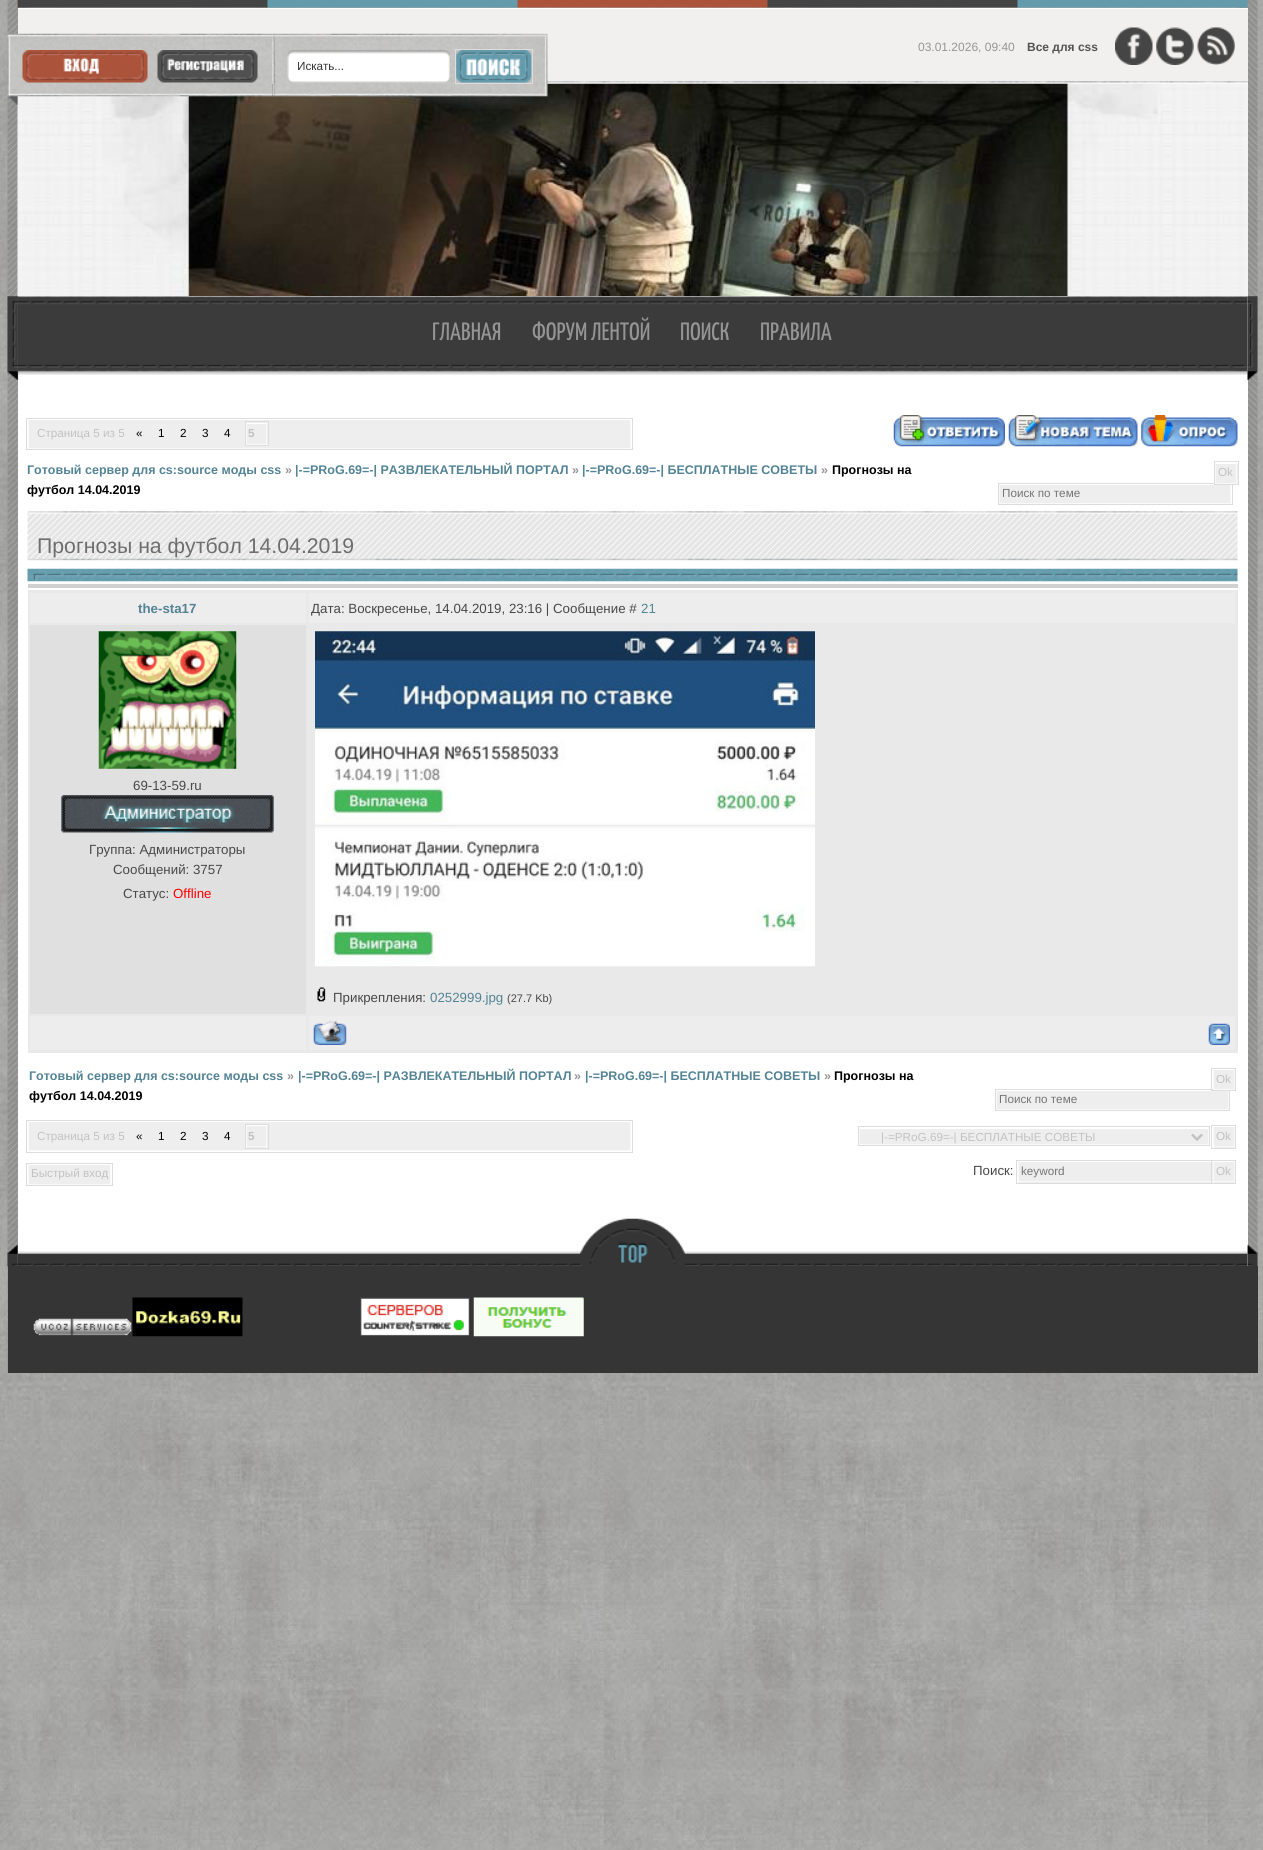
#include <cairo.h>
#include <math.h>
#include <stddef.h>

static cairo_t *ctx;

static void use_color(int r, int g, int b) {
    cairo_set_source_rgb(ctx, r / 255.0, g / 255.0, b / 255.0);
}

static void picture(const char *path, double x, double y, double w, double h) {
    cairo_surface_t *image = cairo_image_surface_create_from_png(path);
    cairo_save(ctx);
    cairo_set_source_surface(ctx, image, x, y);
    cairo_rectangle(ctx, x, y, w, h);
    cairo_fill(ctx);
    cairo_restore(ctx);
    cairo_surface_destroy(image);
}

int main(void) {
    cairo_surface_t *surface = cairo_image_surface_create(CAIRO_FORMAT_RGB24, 1263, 1850);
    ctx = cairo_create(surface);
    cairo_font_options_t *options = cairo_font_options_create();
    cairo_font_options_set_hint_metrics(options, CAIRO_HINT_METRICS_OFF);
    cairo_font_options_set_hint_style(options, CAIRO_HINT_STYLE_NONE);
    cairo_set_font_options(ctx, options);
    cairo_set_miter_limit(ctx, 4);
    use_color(255, 255, 255);
    cairo_paint(ctx);
    picture("img1.png", 0, 0, 1263, 1850);
    picture("img2.png", 7, 0, 22, 1373);
    picture("img3.png", 1237, 0, 21, 1266);
    picture("img4.png", 17, 0, 1231, 8);
    use_color(241, 240, 238);
    cairo_rectangle(ctx, 18, 9, 1230, 75);
    cairo_fill(ctx);
    picture("img5.png", 272, 81, 976, 3);
    use_color(255, 255, 255);
    cairo_rectangle(ctx, 18, 8, 1230, 1);
    cairo_fill(ctx);
    use_color(243, 243, 243);
    cairo_rectangle(ctx, 1247, 84, 1, 212);
    cairo_fill(ctx);
    picture("img15.png", 17, 83, 1231, 214);
    picture("img6.png", 7, 33, 266, 73);
    picture("img7.png", 22, 50, 126, 33);
    picture("img8.png", 157, 50, 101, 33);
    cairo_select_font_face(ctx, "Liberation Sans", CAIRO_FONT_SLANT_NORMAL, CAIRO_FONT_WEIGHT_NORMAL);
    cairo_set_font_size(ctx, 12);
    use_color(149, 149, 149);
    cairo_move_to(ctx, 918, 51);
    cairo_show_text(ctx, "03.01.2026, 09:40");
    cairo_select_font_face(ctx, "Liberation Sans", CAIRO_FONT_SLANT_NORMAL, CAIRO_FONT_WEIGHT_BOLD);
    use_color(82, 82, 82);
    cairo_move_to(ctx, 1027, 51);
    cairo_show_text(ctx, "Все для css");
    picture("img9.png", 1115, 27, 38, 38);
    picture("img10.png", 1156, 27, 38, 38);
    picture("img11.png", 1197, 27, 38, 38);
    picture("img12.png", 272, 33, 276, 76);
    picture("img13.png", 287, 50, 163, 33);
    cairo_save(ctx);
    cairo_rectangle(ctx, 298, 60, 142, 13);
    cairo_clip(ctx);
    cairo_select_font_face(ctx, "Liberation Sans", CAIRO_FONT_SLANT_NORMAL, CAIRO_FONT_WEIGHT_NORMAL);
    cairo_set_font_size(ctx, 11.7);
    use_color(51, 51, 51);
    cairo_move_to(ctx, 297, 70);
    cairo_show_text(ctx, "Искать...");
    cairo_restore(ctx);
    picture("img14.png", 456, 50, 76, 33);
    cairo_rectangle(ctx, 455.5, 49.5, 77, 34);
    use_color(221, 221, 221);
    cairo_set_line_width(ctx, 1);
    cairo_stroke(ctx);
    use_color(255, 255, 255);
    cairo_rectangle(ctx, 18, 296, 1230, 970);
    cairo_fill(ctx);
    picture("img16.png", 17, 296, 1231, 79);
    picture("img17.png", 7, 296, 12, 84);
    picture("img18.png", 1247, 296, 11, 84);
    cairo_select_font_face(ctx, "Yanone Kaffeesatz ExtraLight", CAIRO_FONT_SLANT_NORMAL, CAIRO_FONT_WEIGHT_NORMAL);
    cairo_set_font_size(ctx, 25);
    use_color(149, 149, 149);
    cairo_move_to(ctx, 432, 340);
    cairo_show_text(ctx, "ГЛАВНАЯ");
    cairo_move_to(ctx, 532, 340);
    cairo_show_text(ctx, "ФОРУМ ЛЕНТОЙ");
    cairo_move_to(ctx, 680, 340);
    cairo_show_text(ctx, "ПОИСК");
    cairo_move_to(ctx, 760, 340);
    cairo_show_text(ctx, "ПРАВИЛА");
    use_color(238, 238, 238);
    cairo_rectangle(ctx, 29, 420, 601, 28);
    cairo_fill(ctx);
    use_color(249, 249, 249);
    cairo_rectangle(ctx, 630, 419, 1, 30);
    cairo_fill(ctx);
    cairo_rectangle(ctx, 28, 448, 603, 1);
    cairo_fill(ctx);
    cairo_rectangle(ctx, 28, 419, 1, 30);
    cairo_fill(ctx);
    use_color(255, 255, 255);
    cairo_rectangle(ctx, 246, 423, 22, 1);
    cairo_fill(ctx);
    use_color(249, 249, 249);
    cairo_rectangle(ctx, 266, 423, 1, 22);
    cairo_fill(ctx);
    cairo_rectangle(ctx, 246, 444, 22, 1);
    cairo_fill(ctx);
    cairo_rectangle(ctx, 246, 423, 1, 22);
    cairo_fill(ctx);
    cairo_rectangle(ctx, 245.5, 421.5, 23, 24);
    use_color(221, 221, 221);
    cairo_stroke(ctx);
    cairo_rectangle(ctx, 26.5, 418.5, 606, 31);
    cairo_stroke(ctx);
    cairo_select_font_face(ctx, "Liberation Sans", CAIRO_FONT_SLANT_NORMAL, CAIRO_FONT_WEIGHT_NORMAL);
    cairo_set_font_size(ctx, 11.7);
    use_color(194, 194, 194);
    cairo_move_to(ctx, 37, 437);
    cairo_show_text(ctx, "Страница 5 из 5");
    use_color(0, 0, 0);
    cairo_move_to(ctx, 136, 437);
    cairo_show_text(ctx, "«");
    cairo_move_to(ctx, 158, 437);
    cairo_show_text(ctx, "1");
    cairo_move_to(ctx, 180, 437);
    cairo_show_text(ctx, "2");
    cairo_move_to(ctx, 202, 437);
    cairo_show_text(ctx, "3");
    cairo_move_to(ctx, 224, 437);
    cairo_show_text(ctx, "4");
    cairo_select_font_face(ctx, "Liberation Sans", CAIRO_FONT_SLANT_NORMAL, CAIRO_FONT_WEIGHT_BOLD);
    use_color(194, 194, 194);
    cairo_move_to(ctx, 248, 437);
    cairo_show_text(ctx, "5");
    picture("img19.png", 893, 415, 112, 32);
    picture("img20.png", 1008, 415, 130, 32);
    picture("img21.png", 1141, 415, 97, 32);
    cairo_set_font_size(ctx, 12.5);
    use_color(83, 131, 148);
    cairo_move_to(ctx, 27, 474);
    cairo_show_text(ctx, "Готовый сервер для cs:source моды css");
    use_color(149, 149, 149);
    cairo_move_to(ctx, 285, 474);
    cairo_show_text(ctx, "»");
    use_color(83, 131, 148);
    cairo_move_to(ctx, 295, 474);
    cairo_show_text(ctx, "|-=PRoG.69=-| РАЗВЛЕКАТЕЛЬНЫЙ ПОРТАЛ");
    use_color(149, 149, 149);
    cairo_move_to(ctx, 572, 474);
    cairo_show_text(ctx, "»");
    use_color(83, 131, 148);
    cairo_move_to(ctx, 582, 474);
    cairo_show_text(ctx, "|-=PRoG.69=-| БЕСПЛАТНЫЕ СОВЕТЫ");
    use_color(149, 149, 149);
    cairo_move_to(ctx, 821, 474);
    cairo_show_text(ctx, "»");
    use_color(0, 0, 0);
    cairo_move_to(ctx, 832, 474);
    cairo_show_text(ctx, "Прогнозы на");
    cairo_move_to(ctx, 27, 494);
    cairo_show_text(ctx, "футбол 14.04.2019");
    use_color(238, 238, 238);
    cairo_rectangle(ctx, 1216, 464, 22, 19);
    cairo_fill(ctx);
    use_color(249, 249, 249);
    cairo_rectangle(ctx, 1236, 463, 1, 21);
    cairo_fill(ctx);
    use_color(238, 238, 238);
    cairo_rectangle(ctx, 1000, 485, 230, 18);
    cairo_fill(ctx);
    use_color(249, 249, 249);
    cairo_rectangle(ctx, 1230, 484, 1, 20);
    cairo_fill(ctx);
    cairo_rectangle(ctx, 999, 503, 232, 1);
    cairo_fill(ctx);
    cairo_rectangle(ctx, 999, 484, 1, 20);
    cairo_fill(ctx);
    cairo_rectangle(ctx, 998.5, 483.5, 234, 21);
    use_color(221, 221, 221);
    cairo_stroke(ctx);
    use_color(249, 249, 249);
    cairo_rectangle(ctx, 1215, 483, 23, 1);
    cairo_fill(ctx);
    cairo_rectangle(ctx, 1215, 463, 1, 21);
    cairo_fill(ctx);
    cairo_rectangle(ctx, 1214.5, 461.5, 24, 23);
    use_color(221, 221, 221);
    cairo_stroke(ctx);
    cairo_select_font_face(ctx, "Liberation Sans", CAIRO_FONT_SLANT_NORMAL, CAIRO_FONT_WEIGHT_NORMAL);
    cairo_set_font_size(ctx, 11.7);
    use_color(194, 194, 194);
    cairo_move_to(ctx, 1218, 476);
    cairo_show_text(ctx, "Ok");
    cairo_save(ctx);
    cairo_rectangle(ctx, 1003, 488, 225, 12);
    cairo_clip(ctx);
    use_color(117, 117, 117);
    cairo_move_to(ctx, 1002, 497);
    cairo_show_text(ctx, "Поиск по теме");
    cairo_restore(ctx);
    picture("img22.png", 27, 511, 1211, 71);
    cairo_set_font_size(ctx, 21.25);
    use_color(110, 110, 110);
    cairo_move_to(ctx, 37, 553);
    cairo_show_text(ctx, "Прогнозы на футбол 14.04.2019");
    use_color(209, 209, 209);
    cairo_rectangle(ctx, 28, 584, 1210, 4);
    cairo_fill(ctx);
    use_color(233, 233, 233);
    cairo_rectangle(ctx, 28, 590, 1210, 463);
    cairo_fill(ctx);
    use_color(237, 237, 237);
    cairo_rectangle(ctx, 30, 593, 276, 30);
    cairo_fill(ctx);
    cairo_select_font_face(ctx, "Liberation Sans", CAIRO_FONT_SLANT_NORMAL, CAIRO_FONT_WEIGHT_BOLD);
    cairo_set_font_size(ctx, 13.3);
    use_color(83, 131, 148);
    cairo_move_to(ctx, 138, 613);
    cairo_show_text(ctx, "the-sta17");
    use_color(237, 237, 237);
    cairo_rectangle(ctx, 309, 593, 926, 30);
    cairo_fill(ctx);
    cairo_select_font_face(ctx, "Liberation Sans", CAIRO_FONT_SLANT_NORMAL, CAIRO_FONT_WEIGHT_NORMAL);
    use_color(72, 72, 72);
    cairo_move_to(ctx, 311, 613);
    cairo_show_text(ctx, "Дата: Воскресенье, 14.04.2019, 23:16 | Сообщение #");
    use_color(83, 131, 148);
    cairo_move_to(ctx, 641, 613);
    cairo_show_text(ctx, "21");
    use_color(224, 224, 224);
    cairo_rectangle(ctx, 30, 625, 276, 389);
    cairo_fill(ctx);
    picture("img23.png", 98, 631, 139, 138);
    use_color(72, 72, 72);
    cairo_move_to(ctx, 133, 790);
    cairo_show_text(ctx, "69-13-59.ru");
    picture("img24.png", 61, 795, 213, 38);
    cairo_move_to(ctx, 89, 854);
    cairo_show_text(ctx, "Группа: Администраторы");
    cairo_move_to(ctx, 113, 874);
    cairo_show_text(ctx, "Сообщений: 3757");
    cairo_move_to(ctx, 123, 898);
    cairo_show_text(ctx, "Статус:");
    use_color(255, 0, 0);
    cairo_move_to(ctx, 173, 898);
    cairo_show_text(ctx, "Offline");
    picture("img25.png", 315, 631, 500, 336);
    picture("img26.png", 317, 987, 9, 15);
    use_color(72, 72, 72);
    cairo_move_to(ctx, 333, 1002);
    cairo_show_text(ctx, "Прикрепления:");
    use_color(83, 131, 148);
    cairo_move_to(ctx, 430, 1002);
    cairo_show_text(ctx, "0252999.jpg");
    cairo_set_font_size(ctx, 11);
    use_color(72, 72, 72);
    cairo_move_to(ctx, 507, 1002);
    cairo_show_text(ctx, "(27.7 Kb)");
    use_color(237, 237, 237);
    cairo_rectangle(ctx, 30, 1016, 276, 34);
    cairo_fill(ctx);
    cairo_rectangle(ctx, 309, 1016, 926, 34);
    cairo_fill(ctx);
    picture("img27.png", 313, 1021, 34, 24);
    picture("img28.png", 1208, 1023, 22, 22);
    cairo_select_font_face(ctx, "Liberation Sans", CAIRO_FONT_SLANT_NORMAL, CAIRO_FONT_WEIGHT_BOLD);
    cairo_set_font_size(ctx, 12.5);
    use_color(83, 131, 148);
    cairo_move_to(ctx, 29, 1080);
    cairo_show_text(ctx, "Готовый сервер для cs:source моды css");
    use_color(149, 149, 149);
    cairo_move_to(ctx, 287, 1080);
    cairo_show_text(ctx, "»");
    use_color(83, 131, 148);
    cairo_move_to(ctx, 298, 1080);
    cairo_show_text(ctx, "|-=PRoG.69=-| РАЗВЛЕКАТЕЛЬНЫЙ ПОРТАЛ");
    use_color(149, 149, 149);
    cairo_move_to(ctx, 574, 1080);
    cairo_show_text(ctx, "»");
    use_color(83, 131, 148);
    cairo_move_to(ctx, 585, 1080);
    cairo_show_text(ctx, "|-=PRoG.69=-| БЕСПЛАТНЫЕ СОВЕТЫ");
    use_color(149, 149, 149);
    cairo_move_to(ctx, 824, 1080);
    cairo_show_text(ctx, "»");
    use_color(0, 0, 0);
    cairo_move_to(ctx, 834, 1080);
    cairo_show_text(ctx, "Прогнозы на");
    cairo_move_to(ctx, 29, 1100);
    cairo_show_text(ctx, "футбол 14.04.2019");
    use_color(238, 238, 238);
    cairo_rectangle(ctx, 1214, 1070, 20, 19);
    cairo_fill(ctx);
    use_color(249, 249, 249);
    cairo_rectangle(ctx, 1234, 1069, 1, 21);
    cairo_fill(ctx);
    use_color(238, 238, 238);
    cairo_rectangle(ctx, 997, 1091, 231, 18);
    cairo_fill(ctx);
    use_color(249, 249, 249);
    cairo_rectangle(ctx, 1228, 1090, 1, 20);
    cairo_fill(ctx);
    cairo_rectangle(ctx, 996, 1109, 233, 1);
    cairo_fill(ctx);
    cairo_rectangle(ctx, 996, 1090, 1, 20);
    cairo_fill(ctx);
    cairo_rectangle(ctx, 995.5, 1089.5, 234, 21);
    use_color(221, 221, 221);
    cairo_stroke(ctx);
    use_color(249, 249, 249);
    cairo_rectangle(ctx, 1213, 1089, 22, 1);
    cairo_fill(ctx);
    cairo_rectangle(ctx, 1213, 1069, 1, 21);
    cairo_fill(ctx);
    cairo_rectangle(ctx, 1211.5, 1068.5, 24, 22);
    use_color(221, 221, 221);
    cairo_stroke(ctx);
    cairo_select_font_face(ctx, "Liberation Sans", CAIRO_FONT_SLANT_NORMAL, CAIRO_FONT_WEIGHT_NORMAL);
    cairo_set_font_size(ctx, 11.7);
    use_color(194, 194, 194);
    cairo_move_to(ctx, 1216, 1083);
    cairo_show_text(ctx, "Ok");
    use_color(117, 117, 117);
    cairo_move_to(ctx, 999, 1103);
    cairo_show_text(ctx, "Поиск по теме");
    use_color(238, 238, 238);
    cairo_rectangle(ctx, 29, 1122, 601, 28);
    cairo_fill(ctx);
    use_color(249, 249, 249);
    cairo_rectangle(ctx, 630, 1121, 1, 30);
    cairo_fill(ctx);
    cairo_rectangle(ctx, 28, 1150, 603, 1);
    cairo_fill(ctx);
    cairo_rectangle(ctx, 28, 1121, 1, 30);
    cairo_fill(ctx);
    use_color(255, 255, 255);
    cairo_rectangle(ctx, 246, 1125, 22, 1);
    cairo_fill(ctx);
    use_color(249, 249, 249);
    cairo_rectangle(ctx, 266, 1125, 1, 23);
    cairo_fill(ctx);
    cairo_rectangle(ctx, 246, 1146, 22, 1);
    cairo_fill(ctx);
    cairo_rectangle(ctx, 246, 1125, 1, 23);
    cairo_fill(ctx);
    cairo_rectangle(ctx, 245.5, 1124.5, 23, 24);
    use_color(221, 221, 221);
    cairo_stroke(ctx);
    cairo_rectangle(ctx, 26.5, 1120.5, 606, 32);
    cairo_stroke(ctx);
    use_color(194, 194, 194);
    cairo_move_to(ctx, 37, 1140);
    cairo_show_text(ctx, "Страница 5 из 5");
    use_color(0, 0, 0);
    cairo_move_to(ctx, 136, 1140);
    cairo_show_text(ctx, "«");
    cairo_move_to(ctx, 158, 1140);
    cairo_show_text(ctx, "1");
    cairo_move_to(ctx, 180, 1140);
    cairo_show_text(ctx, "2");
    cairo_move_to(ctx, 202, 1140);
    cairo_show_text(ctx, "3");
    cairo_move_to(ctx, 224, 1140);
    cairo_show_text(ctx, "4");
    cairo_select_font_face(ctx, "Liberation Sans", CAIRO_FONT_SLANT_NORMAL, CAIRO_FONT_WEIGHT_BOLD);
    use_color(194, 194, 194);
    cairo_move_to(ctx, 248, 1140);
    cairo_show_text(ctx, "5");
    use_color(238, 238, 238);
    cairo_rectangle(ctx, 860, 1129, 348, 15);
    cairo_fill(ctx);
    use_color(249, 249, 249);
    cairo_rectangle(ctx, 1208, 1128, 1, 17);
    cairo_fill(ctx);
    cairo_rectangle(ctx, 859, 1144, 350, 1);
    cairo_fill(ctx);
    cairo_rectangle(ctx, 859, 1128, 1, 17);
    cairo_fill(ctx);
    cairo_new_path(ctx);
    cairo_move_to(ctx, 1192, 1134.5);
    cairo_line_to(ctx, 1197, 1139.5);
    cairo_line_to(ctx, 1202, 1134.5);
    use_color(194, 194, 194);
    cairo_set_line_width(ctx, 2.5);
    cairo_stroke(ctx);
    cairo_rectangle(ctx, 858.5, 1126.5, 351, 19);
    use_color(221, 221, 221);
    cairo_set_line_width(ctx, 1);
    cairo_stroke(ctx);
    cairo_select_font_face(ctx, "Liberation Sans", CAIRO_FONT_SLANT_NORMAL, CAIRO_FONT_WEIGHT_NORMAL);
    use_color(194, 194, 194);
    cairo_move_to(ctx, 881, 1141);
    cairo_show_text(ctx, "|-=PRoG.69=-| БЕСПЛАТНЫЕ СОВЕТЫ");
    use_color(238, 238, 238);
    cairo_rectangle(ctx, 1214, 1127, 20, 21);
    cairo_fill(ctx);
    use_color(249, 249, 249);
    cairo_rectangle(ctx, 1234, 1126, 1, 22);
    cairo_fill(ctx);
    cairo_rectangle(ctx, 1213, 1146, 22, 1);
    cairo_fill(ctx);
    cairo_rectangle(ctx, 1213, 1126, 1, 22);
    cairo_fill(ctx);
    cairo_rectangle(ctx, 1211.5, 1125.5, 24, 23);
    use_color(221, 221, 221);
    cairo_stroke(ctx);
    use_color(194, 194, 194);
    cairo_move_to(ctx, 1216, 1140);
    cairo_show_text(ctx, "Ok");
    use_color(238, 238, 238);
    cairo_rectangle(ctx, 29, 1165, 81, 19);
    cairo_fill(ctx);
    use_color(249, 249, 249);
    cairo_rectangle(ctx, 110, 1164, 1, 21);
    cairo_fill(ctx);
    cairo_rectangle(ctx, 28, 1184, 83, 1);
    cairo_fill(ctx);
    cairo_rectangle(ctx, 28, 1164, 1, 21);
    cairo_fill(ctx);
    cairo_rectangle(ctx, 26.5, 1163.5, 86, 22);
    use_color(221, 221, 221);
    cairo_stroke(ctx);
    use_color(194, 194, 194);
    cairo_move_to(ctx, 31, 1177);
    cairo_show_text(ctx, "Быстрый вход");
    cairo_set_font_size(ctx, 13.3);
    use_color(72, 72, 72);
    cairo_move_to(ctx, 973, 1175);
    cairo_show_text(ctx, "Поиск:");
    use_color(238, 238, 238);
    cairo_rectangle(ctx, 1019, 1162, 194, 21);
    cairo_fill(ctx);
    use_color(249, 249, 249);
    cairo_rectangle(ctx, 1018, 1181, 195, 1);
    cairo_fill(ctx);
    cairo_rectangle(ctx, 1018, 1161, 1, 22);
    cairo_fill(ctx);
    cairo_rectangle(ctx, 1016.5, 1160.5, 197, 23);
    use_color(221, 221, 221);
    cairo_stroke(ctx);
    cairo_set_font_size(ctx, 11.7);
    use_color(117, 117, 117);
    cairo_move_to(ctx, 1021, 1175);
    cairo_show_text(ctx, "keyword");
    use_color(238, 238, 238);
    cairo_rectangle(ctx, 1214, 1162, 20, 21);
    cairo_fill(ctx);
    use_color(255, 255, 255);
    cairo_rectangle(ctx, 1213, 1161, 1, 1);
    cairo_fill(ctx);
    use_color(249, 249, 249);
    cairo_rectangle(ctx, 1234, 1161, 1, 22);
    cairo_fill(ctx);
    cairo_rectangle(ctx, 1213, 1181, 22, 1);
    cairo_fill(ctx);
    cairo_rectangle(ctx, 1213, 1161, 1, 22);
    cairo_fill(ctx);
    cairo_rectangle(ctx, 1211.5, 1160.5, 24, 23);
    use_color(221, 221, 221);
    cairo_stroke(ctx);
    use_color(194, 194, 194);
    cairo_move_to(ctx, 1216, 1175);
    cairo_show_text(ctx, "Ok");
    picture("img29.png", 17, 1251, 1231, 15);
    picture("img30.png", 7, 1244, 11, 23);
    picture("img31.png", 1247, 1244, 11, 22);
    picture("img32.png", 580, 1218, 105, 48);
    use_color(53, 53, 53);
    cairo_rectangle(ctx, 8, 1266, 1250, 107);
    cairo_fill(ctx);
    picture("img33.png", 33, 1318, 99, 18);
    picture("img34.png", 132, 1297, 111, 40);
    picture("img35.png", 360, 1297, 110, 39);
    picture("img36.png", 473, 1297, 111, 40);
    cairo_surface_write_to_png(surface, "result.png");
    cairo_font_options_destroy(options);
    cairo_destroy(ctx);
    cairo_surface_destroy(surface);
    return 0;
}
